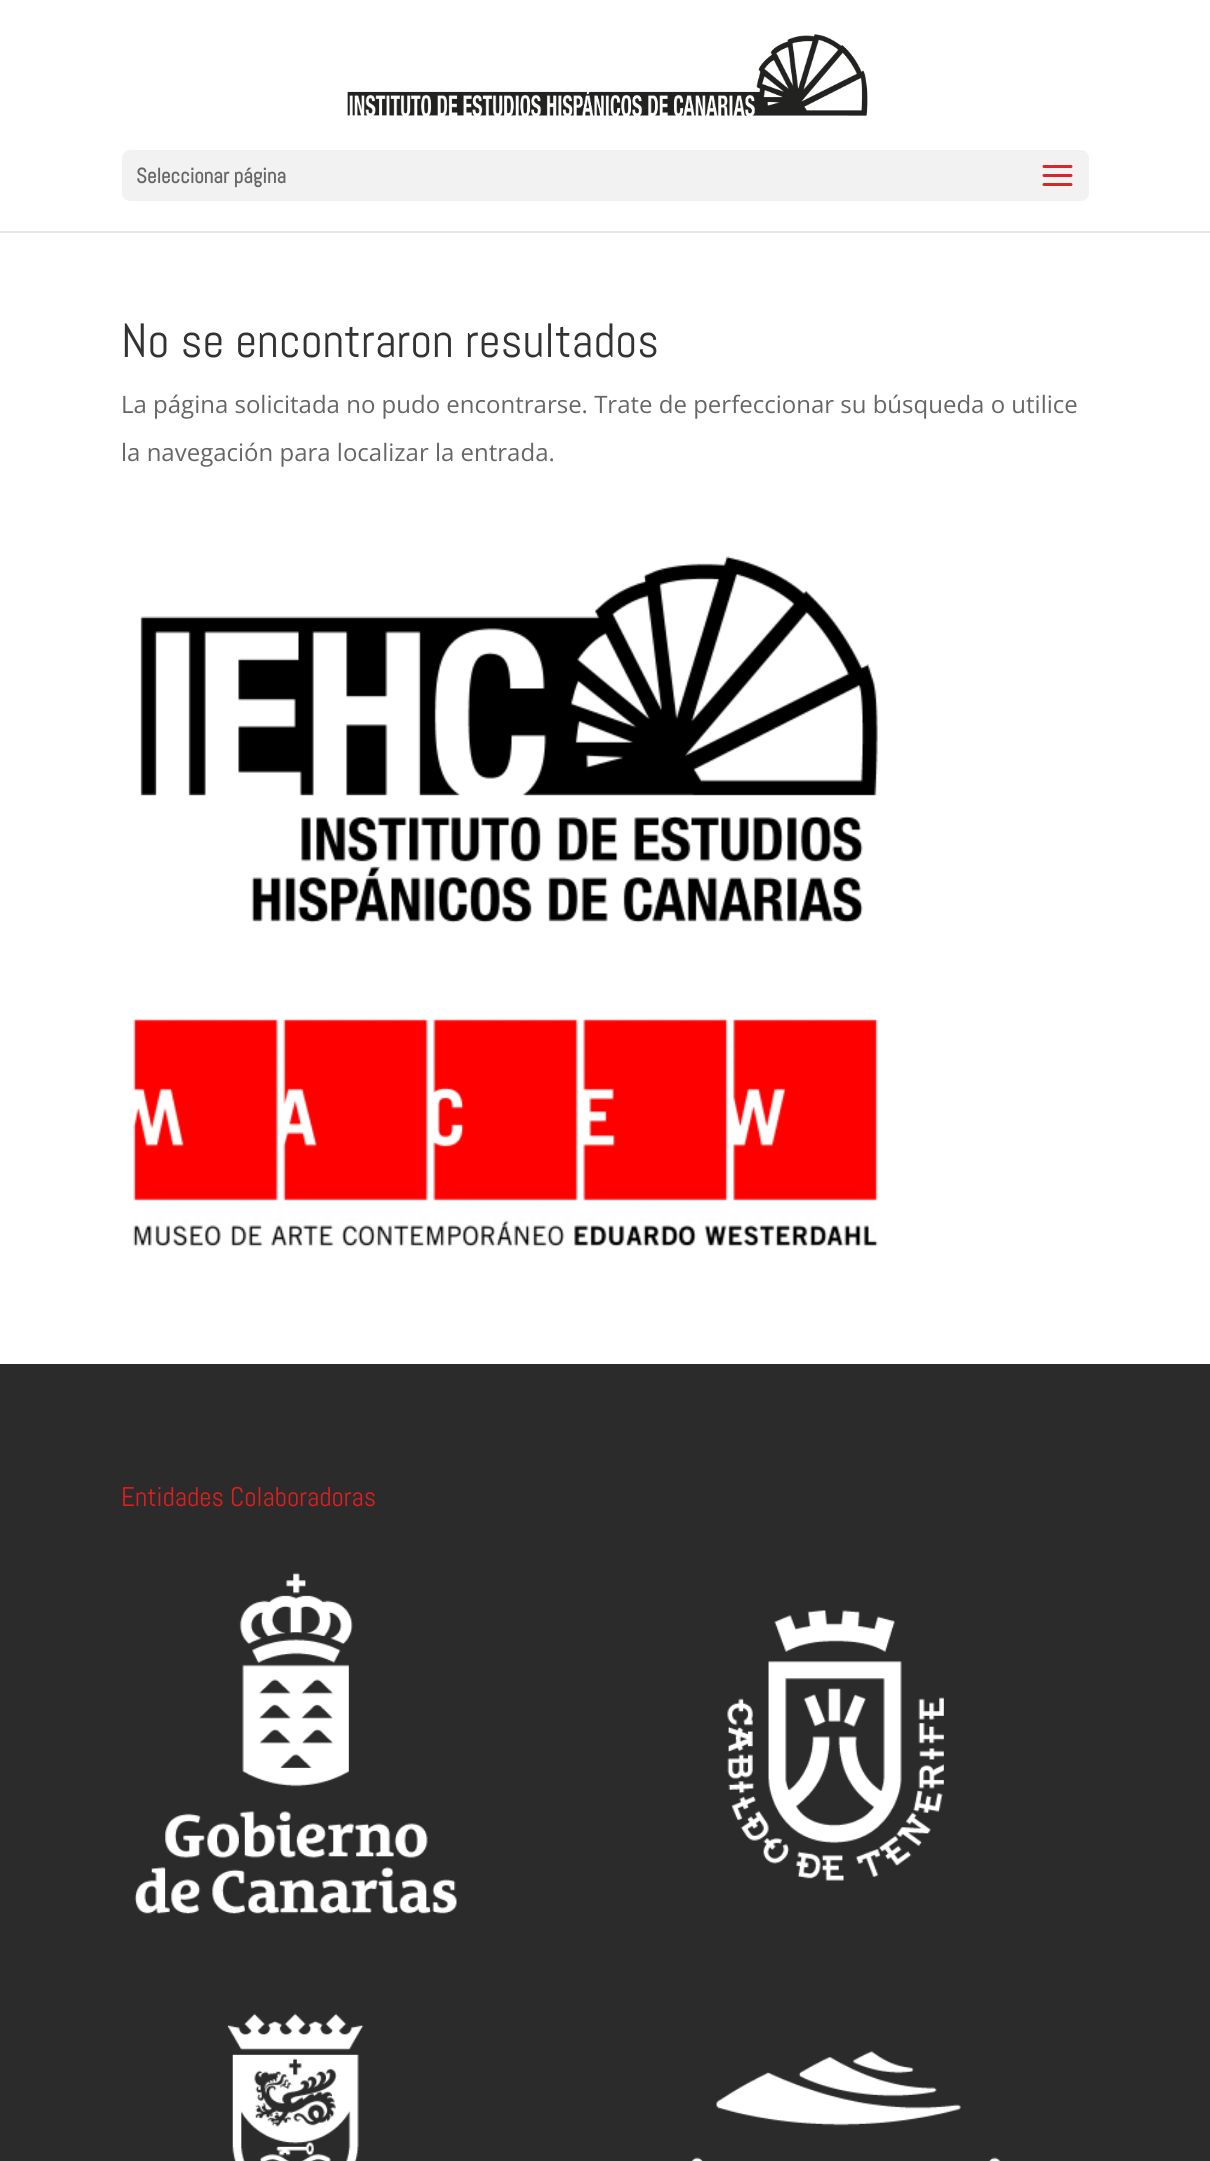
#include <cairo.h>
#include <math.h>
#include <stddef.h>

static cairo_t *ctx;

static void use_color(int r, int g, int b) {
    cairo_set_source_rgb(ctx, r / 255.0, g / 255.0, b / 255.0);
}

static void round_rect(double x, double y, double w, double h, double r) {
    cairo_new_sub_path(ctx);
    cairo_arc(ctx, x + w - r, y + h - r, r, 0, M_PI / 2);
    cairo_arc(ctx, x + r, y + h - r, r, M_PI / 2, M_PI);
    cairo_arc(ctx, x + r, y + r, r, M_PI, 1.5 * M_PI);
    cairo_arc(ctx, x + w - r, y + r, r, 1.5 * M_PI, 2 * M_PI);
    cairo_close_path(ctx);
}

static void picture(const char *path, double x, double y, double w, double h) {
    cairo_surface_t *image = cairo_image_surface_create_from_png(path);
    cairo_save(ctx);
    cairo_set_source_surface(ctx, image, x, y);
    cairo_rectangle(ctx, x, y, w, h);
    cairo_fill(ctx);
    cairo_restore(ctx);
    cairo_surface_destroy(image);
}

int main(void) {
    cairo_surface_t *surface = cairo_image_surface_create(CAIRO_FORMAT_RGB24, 1210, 2161);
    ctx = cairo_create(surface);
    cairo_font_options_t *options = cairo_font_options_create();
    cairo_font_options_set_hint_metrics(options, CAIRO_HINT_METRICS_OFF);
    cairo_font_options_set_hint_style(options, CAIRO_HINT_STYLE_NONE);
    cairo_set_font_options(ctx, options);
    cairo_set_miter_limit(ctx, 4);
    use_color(255, 255, 255);
    cairo_paint(ctx);
    use_color(230, 230, 230);
    cairo_new_path(ctx);
    cairo_move_to(ctx, 0, 231);
    cairo_line_to(ctx, 0, 233);
    cairo_line_to(ctx, 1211, 233);
    cairo_line_to(ctx, 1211, 2);
    cairo_line_to(ctx, 1210, 2);
    cairo_line_to(ctx, 1210, 231);
    cairo_close_path(ctx);
    cairo_fill(ctx);
    picture("img1.png", 347, 34, 521, 82);
    use_color(242, 242, 242);
    round_rect(122, 150, 967, 51, 8);
    cairo_fill(ctx);
    cairo_select_font_face(ctx, "Abel", CAIRO_FONT_SLANT_NORMAL, CAIRO_FONT_WEIGHT_BOLD);
    cairo_set_font_size(ctx, 21);
    use_color(102, 102, 102);
    cairo_move_to(ctx, 136, 183);
    cairo_show_text(ctx, "Seleccionar página");
    picture("img2.png", 1042, 165, 31, 21);
    cairo_select_font_face(ctx, "Abel", CAIRO_FONT_SLANT_NORMAL, CAIRO_FONT_WEIGHT_NORMAL);
    cairo_set_font_size(ctx, 48);
    use_color(51, 51, 51);
    cairo_move_to(ctx, 121, 357);
    cairo_show_text(ctx, "No se encontraron resultados");
    cairo_select_font_face(ctx, "Open Sans", CAIRO_FONT_SLANT_NORMAL, CAIRO_FONT_WEIGHT_NORMAL);
    cairo_set_font_size(ctx, 24);
    use_color(102, 102, 102);
    cairo_move_to(ctx, 121, 413);
    cairo_show_text(ctx, "La página solicitada no pudo encontrarse. Trate de perfeccionar su búsqueda o utilice");
    cairo_move_to(ctx, 121, 461);
    cairo_show_text(ctx, "la navegación para localizar la entrada.");
    picture("img3.png", 140, 556, 738, 367);
    picture("img4.png", 133, 1018, 745, 229);
    use_color(43, 43, 43);
    cairo_rectangle(ctx, 0, 1364, 1210, 797);
    cairo_fill(ctx);
    cairo_select_font_face(ctx, "Abel", CAIRO_FONT_SLANT_NORMAL, CAIRO_FONT_WEIGHT_NORMAL);
    cairo_set_font_size(ctx, 27);
    use_color(221, 31, 31);
    cairo_move_to(ctx, 121, 1506);
    cairo_show_text(ctx, "Entidades Colaboradoras");
    picture("img5.png", 134, 1572, 867, 589);
    cairo_surface_write_to_png(surface, "result.png");
    cairo_font_options_destroy(options);
    cairo_destroy(ctx);
    cairo_surface_destroy(surface);
    return 0;
}
